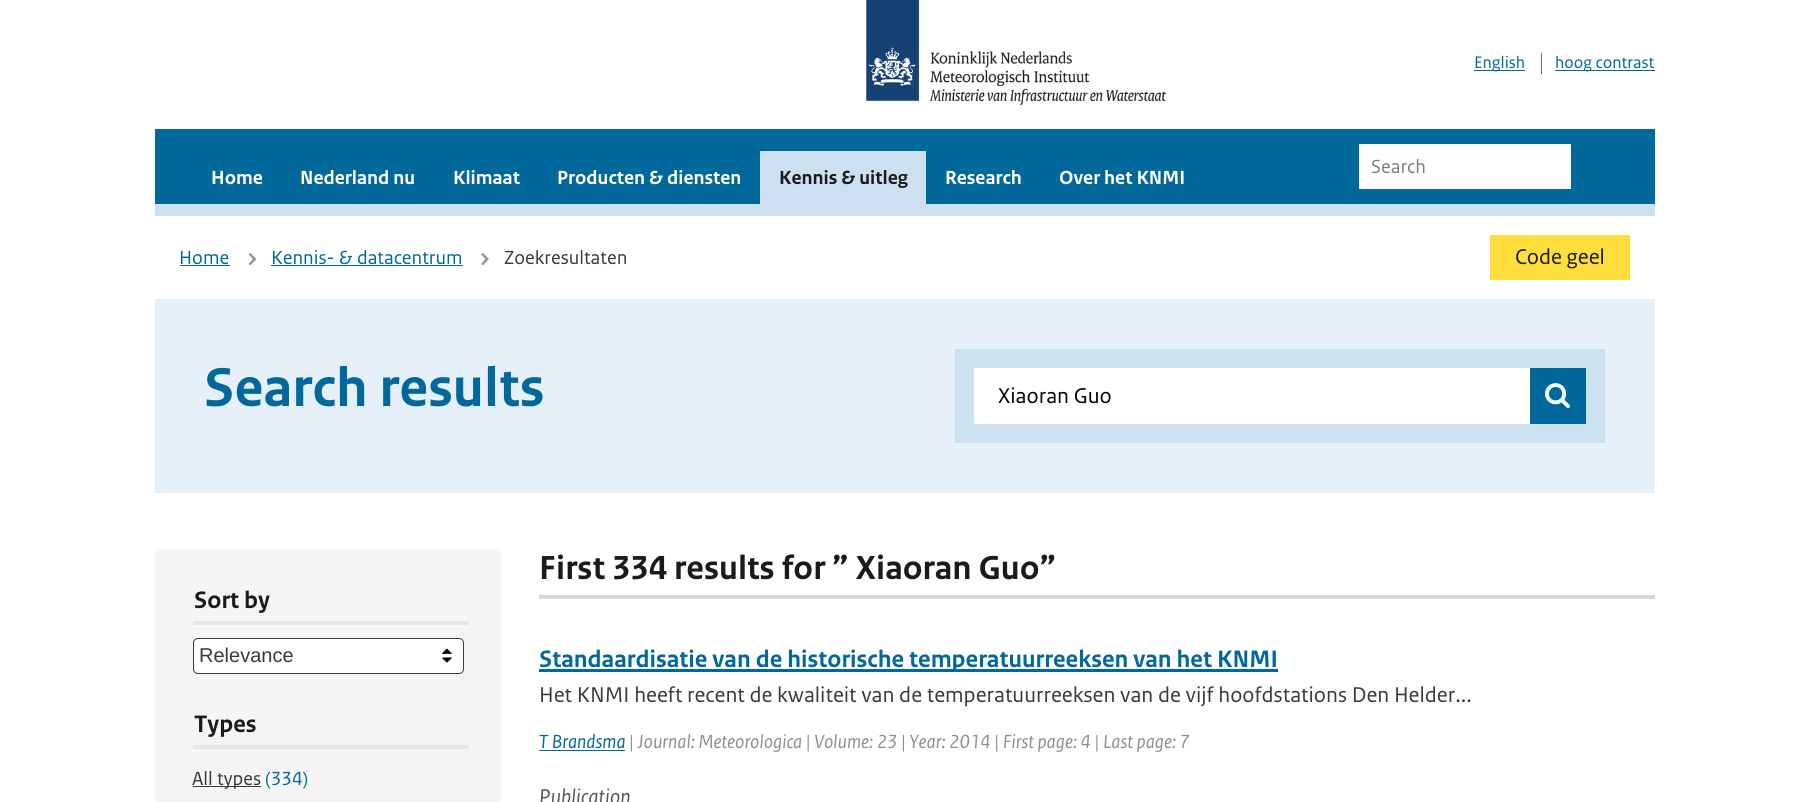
#include <cairo.h>
#include <math.h>
#include <stddef.h>

static cairo_t *ctx;

static void use_color(int r, int g, int b) {
    cairo_set_source_rgb(ctx, r / 255.0, g / 255.0, b / 255.0);
}

static void round_rect(double x, double y, double w, double h, double r) {
    cairo_new_sub_path(ctx);
    cairo_arc(ctx, x + w - r, y + h - r, r, 0, M_PI / 2);
    cairo_arc(ctx, x + r, y + h - r, r, M_PI / 2, M_PI);
    cairo_arc(ctx, x + r, y + r, r, M_PI, 1.5 * M_PI);
    cairo_arc(ctx, x + w - r, y + r, r, 1.5 * M_PI, 2 * M_PI);
    cairo_close_path(ctx);
}

static void picture(const char *path, double x, double y, double w, double h) {
    cairo_surface_t *image = cairo_image_surface_create_from_png(path);
    cairo_save(ctx);
    cairo_set_source_surface(ctx, image, x, y);
    cairo_rectangle(ctx, x, y, w, h);
    cairo_fill(ctx);
    cairo_restore(ctx);
    cairo_surface_destroy(image);
}

int main(void) {
    cairo_surface_t *surface = cairo_image_surface_create(CAIRO_FORMAT_RGB24, 1808, 802);
    ctx = cairo_create(surface);
    cairo_font_options_t *options = cairo_font_options_create();
    cairo_font_options_set_hint_metrics(options, CAIRO_HINT_METRICS_OFF);
    cairo_font_options_set_hint_style(options, CAIRO_HINT_STYLE_NONE);
    cairo_set_font_options(ctx, options);
    cairo_set_miter_limit(ctx, 4);
    use_color(255, 255, 255);
    cairo_paint(ctx);
    picture("img1.png", 866, 0, 301, 105);
    use_color(1, 104, 155);
    cairo_rectangle(ctx, 1474, 70, 51, 1);
    cairo_fill(ctx);
    cairo_select_font_face(ctx, "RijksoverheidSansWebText", CAIRO_FONT_SLANT_NORMAL, CAIRO_FONT_WEIGHT_NORMAL);
    cairo_set_font_size(ctx, 17.5);
    cairo_move_to(ctx, 1474, 68);
    cairo_show_text(ctx, "English");
    cairo_rectangle(ctx, 1555, 70, 100, 1);
    cairo_fill(ctx);
    cairo_move_to(ctx, 1555, 68);
    cairo_show_text(ctx, "hoog contrast");
    use_color(110, 110, 110);
    cairo_rectangle(ctx, 1541, 53, 1, 21);
    cairo_fill(ctx);
    use_color(1, 104, 155);
    cairo_rectangle(ctx, 155, 129, 1500, 75);
    cairo_fill(ctx);
    use_color(204, 224, 241);
    cairo_rectangle(ctx, 155, 204, 1500, 12);
    cairo_fill(ctx);
    use_color(255, 255, 255);
    cairo_rectangle(ctx, 1359, 144, 212, 45);
    cairo_fill(ctx);
    cairo_set_font_size(ctx, 20);
    use_color(126, 126, 126);
    cairo_move_to(ctx, 1371, 173);
    cairo_show_text(ctx, "Search");
    cairo_select_font_face(ctx, "RijksoverheidSansWebText", CAIRO_FONT_SLANT_NORMAL, CAIRO_FONT_WEIGHT_BOLD);
    use_color(255, 255, 255);
    cairo_move_to(ctx, 211, 184);
    cairo_show_text(ctx, "Home");
    cairo_move_to(ctx, 300, 184);
    cairo_show_text(ctx, "Nederland nu");
    cairo_move_to(ctx, 453, 184);
    cairo_show_text(ctx, "Klimaat");
    cairo_move_to(ctx, 557, 184);
    cairo_show_text(ctx, "Producten & diensten");
    use_color(204, 224, 241);
    cairo_rectangle(ctx, 760, 151, 166, 53);
    cairo_fill(ctx);
    use_color(26, 26, 26);
    cairo_move_to(ctx, 779, 184);
    cairo_show_text(ctx, "Kennis & uitleg");
    use_color(255, 255, 255);
    cairo_move_to(ctx, 945, 184);
    cairo_show_text(ctx, "Research");
    cairo_move_to(ctx, 1059, 184);
    cairo_show_text(ctx, "Over het KNMI");
    cairo_select_font_face(ctx, "RijksoverheidSansWebText", CAIRO_FONT_SLANT_NORMAL, CAIRO_FONT_WEIGHT_NORMAL);
    use_color(1, 104, 155);
    cairo_move_to(ctx, 179, 264);
    cairo_show_text(ctx, "Home");
    cairo_rectangle(ctx, 180, 265, 50, 1);
    cairo_fill(ctx);
    picture("img2.png", 248, 253, 9, 13);
    cairo_move_to(ctx, 271, 264);
    cairo_show_text(ctx, "Kennis- & datacentrum");
    cairo_rectangle(ctx, 271, 265, 192, 1);
    cairo_fill(ctx);
    picture("img3.png", 481, 253, 8, 13);
    use_color(58, 58, 58);
    cairo_move_to(ctx, 504, 264);
    cairo_show_text(ctx, "Zoekresultaten");
    use_color(255, 222, 60);
    cairo_rectangle(ctx, 1490, 235, 140, 45);
    cairo_fill(ctx);
    cairo_set_font_size(ctx, 22.5);
    use_color(26, 26, 26);
    cairo_move_to(ctx, 1515, 264);
    cairo_show_text(ctx, "Code geel");
    use_color(229, 240, 249);
    cairo_rectangle(ctx, 155, 299, 1500, 194);
    cairo_fill(ctx);
    cairo_select_font_face(ctx, "RijksoverheidSansWebText", CAIRO_FONT_SLANT_NORMAL, CAIRO_FONT_WEIGHT_BOLD);
    cairo_set_font_size(ctx, 57.5);
    use_color(1, 104, 155);
    cairo_move_to(ctx, 204, 406);
    cairo_show_text(ctx, "Search results");
    use_color(205, 226, 239);
    cairo_rectangle(ctx, 955, 349, 650, 94);
    cairo_fill(ctx);
    use_color(255, 255, 255);
    cairo_rectangle(ctx, 974, 368, 556, 56);
    cairo_fill(ctx);
    cairo_select_font_face(ctx, "RijksoverheidSansWebText", CAIRO_FONT_SLANT_NORMAL, CAIRO_FONT_WEIGHT_NORMAL);
    cairo_set_font_size(ctx, 22.5);
    use_color(0, 0, 0);
    cairo_move_to(ctx, 998, 403);
    cairo_show_text(ctx, "Xiaoran Guo");
    use_color(1, 104, 155);
    cairo_rectangle(ctx, 1530, 368, 56, 56);
    cairo_fill(ctx);
    picture("img4.png", 1545, 383, 25, 26);
    use_color(245, 245, 245);
    cairo_rectangle(ctx, 155, 549, 346, 253);
    cairo_fill(ctx);
    use_color(230, 230, 230);
    cairo_rectangle(ctx, 193, 621, 276, 4);
    cairo_fill(ctx);
    cairo_select_font_face(ctx, "RijksoverheidSansWebText", CAIRO_FONT_SLANT_NORMAL, CAIRO_FONT_WEIGHT_BOLD);
    cairo_set_font_size(ctx, 25);
    use_color(26, 26, 26);
    cairo_move_to(ctx, 194, 608);
    cairo_show_text(ctx, "Sort by");
    use_color(255, 255, 255);
    round_rect(193, 638, 271, 36, 5);
    cairo_fill(ctx);
    picture("img5.png", 442, 648, 10, 15);
    round_rect(193.5, 638.5, 270, 35, 4.5);
    use_color(58, 58, 58);
    cairo_set_line_width(ctx, 1);
    cairo_stroke(ctx);
    cairo_select_font_face(ctx, "Liberation Sans", CAIRO_FONT_SLANT_NORMAL, CAIRO_FONT_WEIGHT_NORMAL);
    cairo_set_font_size(ctx, 20);
    cairo_move_to(ctx, 199, 662);
    cairo_show_text(ctx, "Relevance");
    use_color(230, 230, 230);
    cairo_rectangle(ctx, 193, 745, 276, 4);
    cairo_fill(ctx);
    cairo_select_font_face(ctx, "RijksoverheidSansWebText", CAIRO_FONT_SLANT_NORMAL, CAIRO_FONT_WEIGHT_BOLD);
    cairo_set_font_size(ctx, 25);
    use_color(26, 26, 26);
    cairo_move_to(ctx, 194, 732);
    cairo_show_text(ctx, "Types");
    use_color(58, 58, 58);
    cairo_rectangle(ctx, 193, 786, 68, 1);
    cairo_fill(ctx);
    cairo_select_font_face(ctx, "RijksoverheidSansWebText", CAIRO_FONT_SLANT_NORMAL, CAIRO_FONT_WEIGHT_NORMAL);
    cairo_set_font_size(ctx, 20);
    cairo_move_to(ctx, 192, 785);
    cairo_show_text(ctx, "All types");
    use_color(1, 104, 155);
    cairo_move_to(ctx, 265, 785);
    cairo_show_text(ctx, "(334)");
    use_color(216, 216, 216);
    cairo_rectangle(ctx, 539, 595, 1116, 4);
    cairo_fill(ctx);
    cairo_select_font_face(ctx, "RijksoverheidSansWebText", CAIRO_FONT_SLANT_NORMAL, CAIRO_FONT_WEIGHT_BOLD);
    cairo_set_font_size(ctx, 35);
    use_color(26, 26, 26);
    cairo_move_to(ctx, 539, 579);
    cairo_show_text(ctx, "First 334 results for ” Xiaoran Guo”");
    use_color(1, 104, 155);
    cairo_rectangle(ctx, 539, 669, 739, 3);
    cairo_fill(ctx);
    cairo_set_font_size(ctx, 25);
    cairo_move_to(ctx, 539, 667);
    cairo_show_text(ctx, "Standaardisatie van de historische temperatuurreeksen van het KNMI");
    cairo_select_font_face(ctx, "RijksoverheidSansWebText", CAIRO_FONT_SLANT_NORMAL, CAIRO_FONT_WEIGHT_NORMAL);
    cairo_set_font_size(ctx, 22.5);
    use_color(58, 58, 58);
    cairo_move_to(ctx, 539, 702);
    cairo_show_text(ctx, "Het KNMI heeft recent de kwaliteit van de temperatuurreeksen van de vijf hoofdstations Den Helder...");
    cairo_select_font_face(ctx, "RijksoverheidSansWebText", CAIRO_FONT_SLANT_ITALIC, CAIRO_FONT_WEIGHT_NORMAL);
    cairo_set_font_size(ctx, 20);
    use_color(1, 104, 155);
    cairo_move_to(ctx, 539, 748);
    cairo_show_text(ctx, "T Brandsma");
    cairo_rectangle(ctx, 539, 750, 86, 1);
    cairo_fill(ctx);
    use_color(142, 142, 142);
    cairo_move_to(ctx, 629, 748);
    cairo_show_text(ctx, "| Journal: Meteorologica | Volume: 23 | Year: 2014 | First page: 4 | Last page: 7");
    cairo_set_font_size(ctx, 22.5);
    use_color(88, 88, 88);
    cairo_move_to(ctx, 539, 804);
    cairo_show_text(ctx, "Publication");
    cairo_surface_write_to_png(surface, "result.png");
    cairo_font_options_destroy(options);
    cairo_destroy(ctx);
    cairo_surface_destroy(surface);
    return 0;
}
